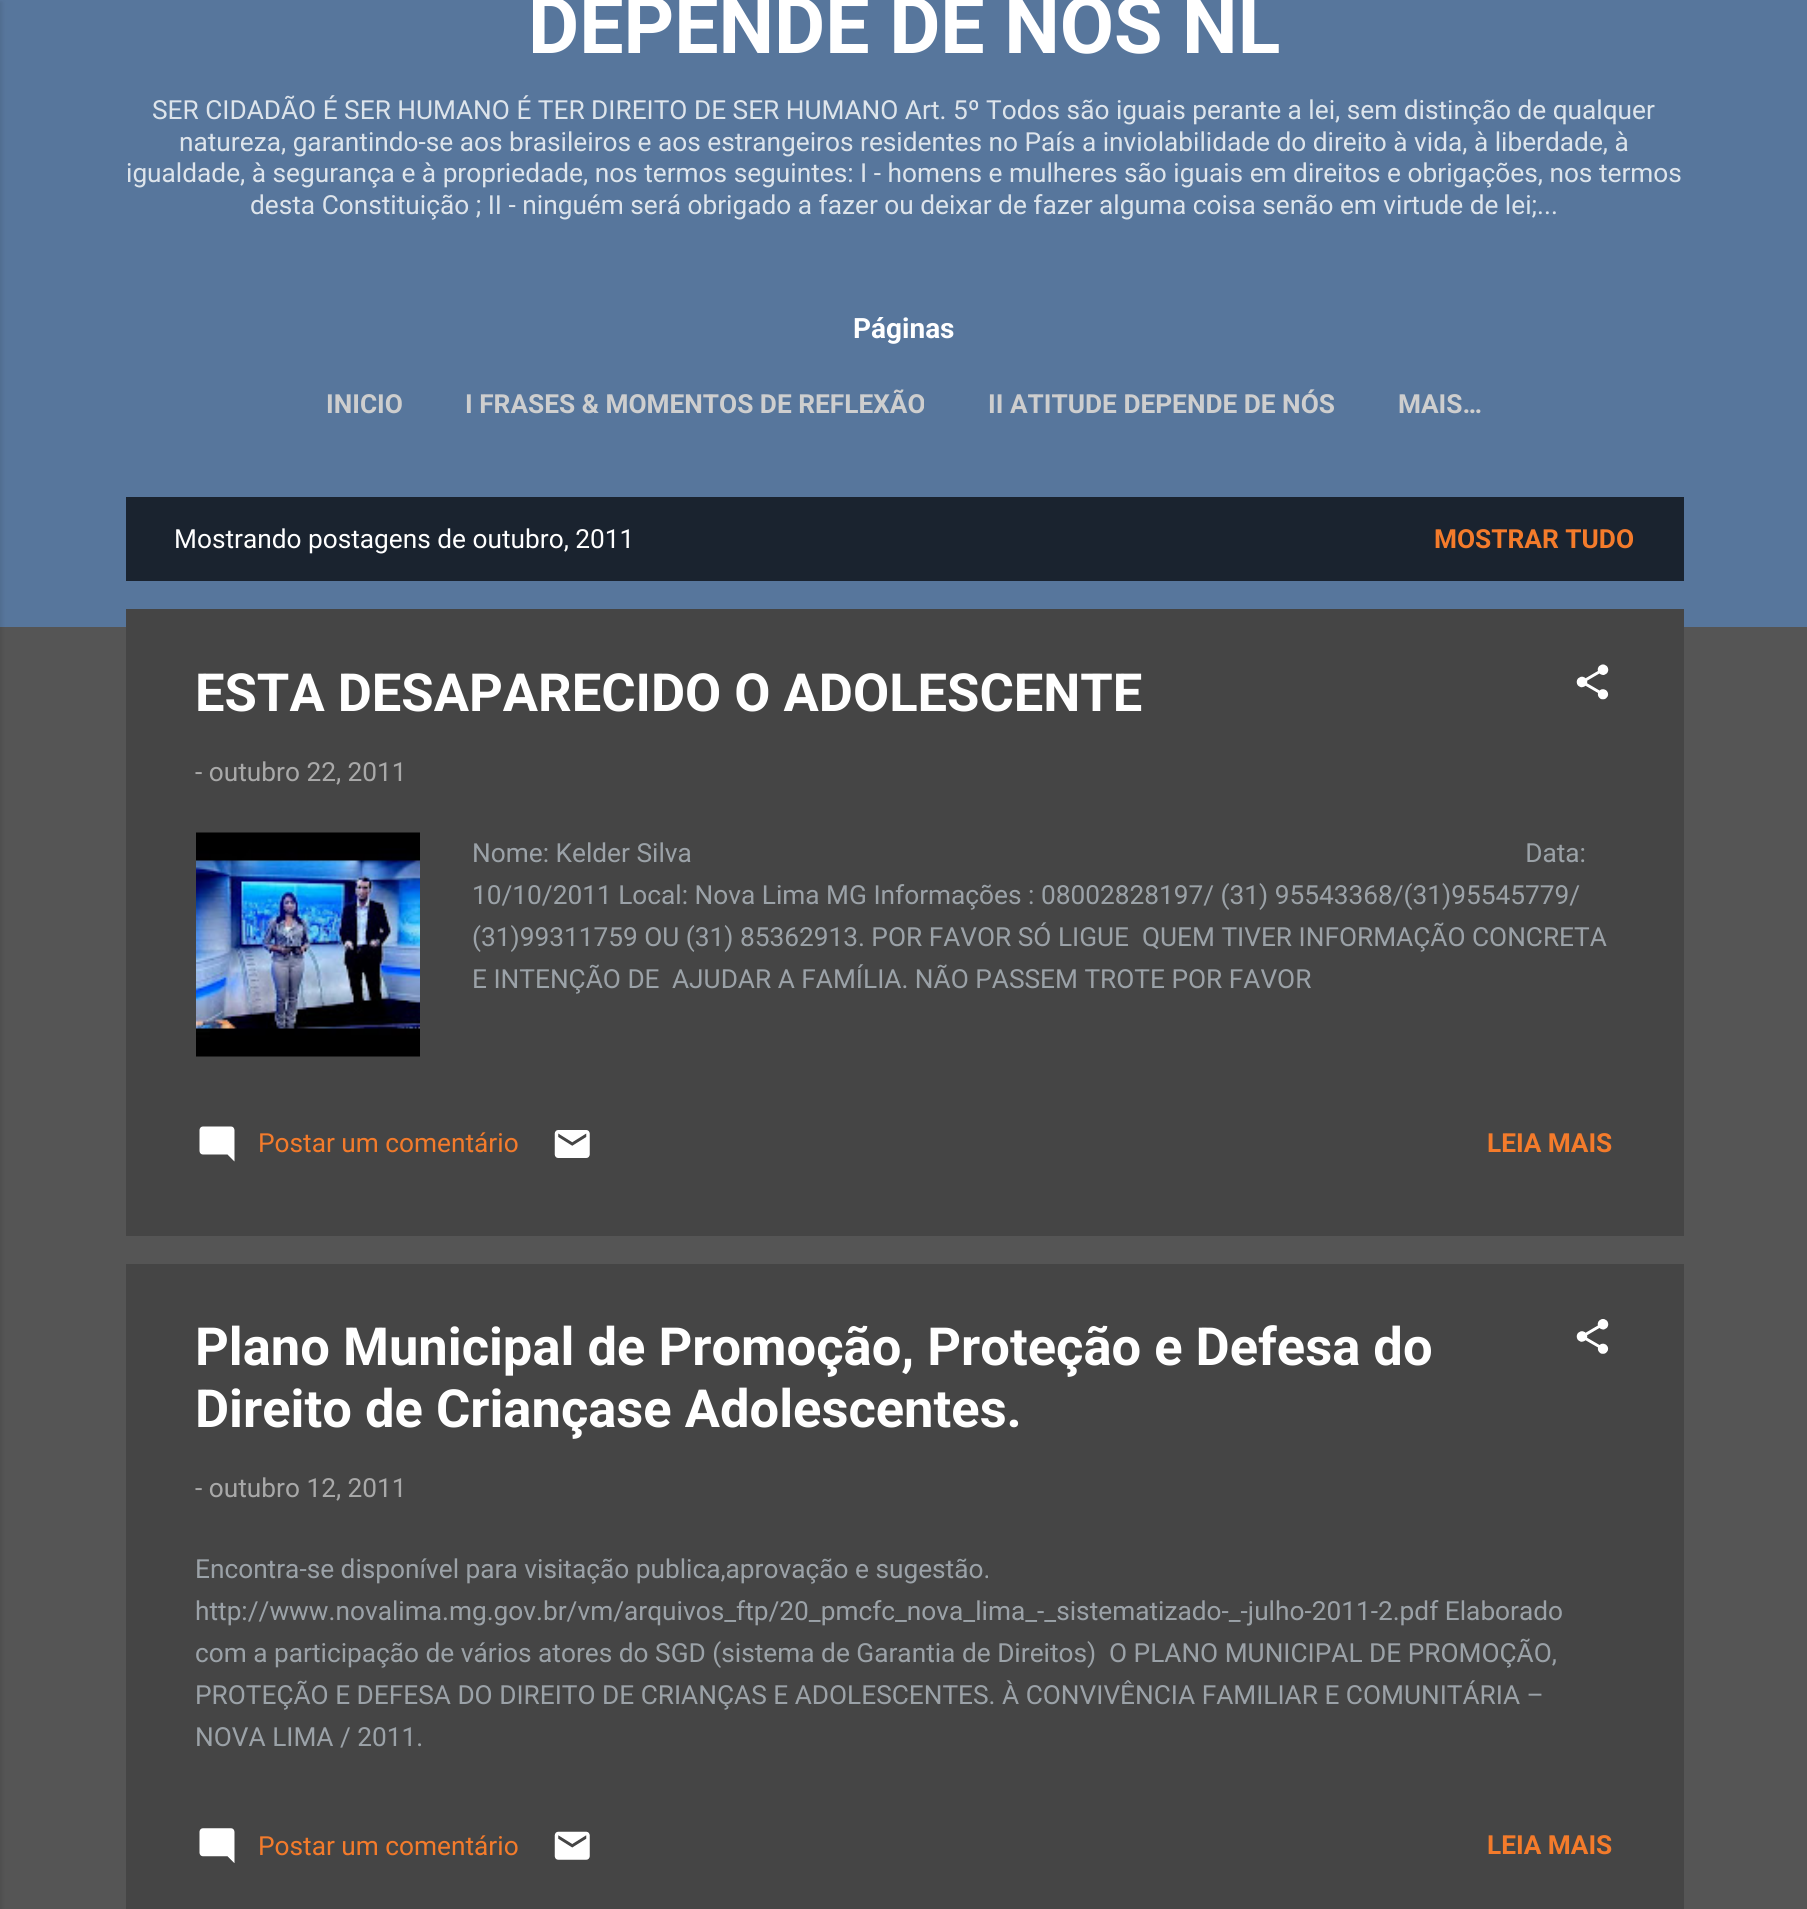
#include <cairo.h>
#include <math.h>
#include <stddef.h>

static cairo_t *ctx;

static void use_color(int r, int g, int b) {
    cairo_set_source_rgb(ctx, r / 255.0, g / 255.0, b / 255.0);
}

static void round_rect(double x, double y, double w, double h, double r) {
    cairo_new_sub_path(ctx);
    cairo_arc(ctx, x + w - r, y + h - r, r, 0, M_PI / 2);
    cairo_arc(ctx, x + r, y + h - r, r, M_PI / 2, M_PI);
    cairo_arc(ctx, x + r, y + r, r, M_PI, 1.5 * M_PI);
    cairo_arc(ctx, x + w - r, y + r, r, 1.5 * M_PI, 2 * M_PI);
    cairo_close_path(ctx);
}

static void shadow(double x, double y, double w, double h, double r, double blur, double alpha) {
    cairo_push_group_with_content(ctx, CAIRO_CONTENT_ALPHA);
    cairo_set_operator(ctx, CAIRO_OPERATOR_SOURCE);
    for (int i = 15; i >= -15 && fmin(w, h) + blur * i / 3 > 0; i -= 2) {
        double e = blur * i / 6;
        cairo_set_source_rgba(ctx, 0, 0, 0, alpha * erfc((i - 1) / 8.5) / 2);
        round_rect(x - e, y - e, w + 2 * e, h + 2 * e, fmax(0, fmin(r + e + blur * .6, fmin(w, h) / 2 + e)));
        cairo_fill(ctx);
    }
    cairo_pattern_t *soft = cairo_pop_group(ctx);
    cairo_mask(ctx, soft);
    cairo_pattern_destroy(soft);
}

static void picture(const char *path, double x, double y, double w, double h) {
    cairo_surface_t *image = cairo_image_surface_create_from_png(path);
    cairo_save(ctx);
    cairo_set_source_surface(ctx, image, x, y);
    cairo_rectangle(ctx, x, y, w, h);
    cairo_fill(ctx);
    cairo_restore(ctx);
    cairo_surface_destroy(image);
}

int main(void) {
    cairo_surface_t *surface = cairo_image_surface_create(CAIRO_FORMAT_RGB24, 1807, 1909);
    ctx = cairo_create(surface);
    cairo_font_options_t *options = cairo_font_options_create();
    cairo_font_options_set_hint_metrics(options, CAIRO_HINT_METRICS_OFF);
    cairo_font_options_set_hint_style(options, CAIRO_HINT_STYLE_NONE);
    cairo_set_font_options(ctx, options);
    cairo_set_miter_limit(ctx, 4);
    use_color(85, 85, 85);
    cairo_paint(ctx);
    use_color(87, 118, 156);
    cairo_rectangle(ctx, 0, 0, 1807, 627);
    cairo_fill(ctx);
    use_color(0, 0, 0);
    shadow(-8, 2, 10, 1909, 0, 2.5, 0.1);
    cairo_select_font_face(ctx, "Roboto", CAIRO_FONT_SLANT_NORMAL, CAIRO_FONT_WEIGHT_BOLD);
    cairo_set_font_size(ctx, 78.75);
    use_color(255, 255, 255);
    cairo_move_to(ctx, 528, 53);
    cairo_show_text(ctx, "DEPENDE DE NÓS NL");
    cairo_select_font_face(ctx, "Roboto", CAIRO_FONT_SLANT_NORMAL, CAIRO_FONT_WEIGHT_NORMAL);
    cairo_set_font_size(ctx, 26.25);
    use_color(221, 228, 235);
    cairo_move_to(ctx, 152, 119);
    cairo_show_text(ctx, "SER CIDADÃO É SER HUMANO É TER DIREITO DE SER HUMANO Art. 5º Todos são iguais perante a lei, sem distinção de qualquer");
    cairo_move_to(ctx, 179, 151);
    cairo_show_text(ctx, "natureza, garantindo-se aos brasileiros e aos estrangeiros residentes no País a inviolabilidade do direito à vida, à liberdade, à");
    cairo_move_to(ctx, 126, 182);
    cairo_show_text(ctx, "igualdade, à segurança e à propriedade, nos termos seguintes: I - homens e mulheres são iguais em direitos e obrigações, nos termos");
    cairo_move_to(ctx, 250, 214);
    cairo_show_text(ctx, "desta Constituição ; II - ninguém será obrigado a fazer ou deixar de fazer alguma coisa senão em virtude de lei;...");
    cairo_select_font_face(ctx, "Roboto", CAIRO_FONT_SLANT_NORMAL, CAIRO_FONT_WEIGHT_BOLD);
    cairo_set_font_size(ctx, 28);
    use_color(255, 255, 255);
    cairo_move_to(ctx, 853, 338);
    cairo_show_text(ctx, "Páginas");
    cairo_set_font_size(ctx, 26.25);
    use_color(206, 206, 206);
    cairo_move_to(ctx, 326, 413);
    cairo_show_text(ctx, "INICIO");
    cairo_move_to(ctx, 465, 413);
    cairo_show_text(ctx, "I FRASES & MOMENTOS DE REFLEXÃO");
    cairo_move_to(ctx, 988, 413);
    cairo_show_text(ctx, "II ATITUDE DEPENDE DE NÓS");
    cairo_move_to(ctx, 1398, 413);
    cairo_show_text(ctx, "MAIS…");
    use_color(26, 35, 47);
    cairo_rectangle(ctx, 126, 497, 1558, 84);
    cairo_fill(ctx);
    cairo_select_font_face(ctx, "Roboto", CAIRO_FONT_SLANT_NORMAL, CAIRO_FONT_WEIGHT_NORMAL);
    use_color(255, 255, 255);
    cairo_move_to(ctx, 174, 548);
    cairo_show_text(ctx, "Mostrando postagens de outubro, 2011");
    cairo_select_font_face(ctx, "Roboto", CAIRO_FONT_SLANT_NORMAL, CAIRO_FONT_WEIGHT_BOLD);
    use_color(244, 123, 43);
    cairo_move_to(ctx, 1434, 548);
    cairo_show_text(ctx, "MOSTRAR TUDO");
    use_color(69, 69, 69);
    cairo_rectangle(ctx, 126, 609, 1558, 627);
    cairo_fill(ctx);
    cairo_set_font_size(ctx, 52.5);
    use_color(255, 255, 255);
    cairo_move_to(ctx, 195, 711);
    cairo_show_text(ctx, "ESTA DESAPARECIDO O ADOLESCENTE");
    picture("img1.png", 1576, 664, 33, 36);
    cairo_select_font_face(ctx, "Roboto", CAIRO_FONT_SLANT_NORMAL, CAIRO_FONT_WEIGHT_NORMAL);
    cairo_set_font_size(ctx, 26.25);
    use_color(169, 169, 169);
    cairo_move_to(ctx, 195, 781);
    cairo_show_text(ctx, "- outubro 22, 2011");
    picture("img2.png", 196, 832, 224, 225);
    use_color(155, 162, 168);
    cairo_move_to(ctx, 472, 862);
    cairo_show_text(ctx, "Nome: Kelder Silva                                                                                                                                Data:");
    cairo_move_to(ctx, 472, 904);
    cairo_show_text(ctx, "10/10/2011 Local: Nova Lima MG Informações : 08002828197/ (31) 95543368/(31)95545779/");
    cairo_move_to(ctx, 472, 946);
    cairo_show_text(ctx, "(31)99311759 OU (31) 85362913. POR FAVOR SÓ LIGUE");
    cairo_move_to(ctx, 1142, 946);
    cairo_show_text(ctx, "QUEM TIVER INFORMAÇÃO CONCRETA");
    cairo_move_to(ctx, 472, 988);
    cairo_show_text(ctx, "E INTENÇÃO DE");
    cairo_move_to(ctx, 672, 988);
    cairo_show_text(ctx, "AJUDAR A FAMÍLIA. NÃO PASSEM TROTE POR FAVOR");
    picture("img3.png", 199, 1126, 36, 36);
    use_color(244, 123, 43);
    cairo_move_to(ctx, 258, 1152);
    cairo_show_text(ctx, "Postar um comentário");
    picture("img4.png", 554, 1130, 36, 28);
    cairo_select_font_face(ctx, "Roboto", CAIRO_FONT_SLANT_NORMAL, CAIRO_FONT_WEIGHT_BOLD);
    cairo_move_to(ctx, 1487, 1152);
    cairo_show_text(ctx, "LEIA MAIS");
    use_color(69, 69, 69);
    cairo_rectangle(ctx, 126, 1264, 1558, 645);
    cairo_fill(ctx);
    cairo_set_font_size(ctx, 52.5);
    use_color(255, 255, 255);
    cairo_move_to(ctx, 195, 1365);
    cairo_show_text(ctx, "Plano Municipal de Promoção, Proteção e Defesa do");
    cairo_move_to(ctx, 195, 1427);
    cairo_show_text(ctx, "Direito de Criançase Adolescentes.");
    picture("img5.png", 1576, 1319, 33, 35);
    cairo_select_font_face(ctx, "Roboto", CAIRO_FONT_SLANT_NORMAL, CAIRO_FONT_WEIGHT_NORMAL);
    cairo_set_font_size(ctx, 26.25);
    use_color(169, 169, 169);
    cairo_move_to(ctx, 195, 1497);
    cairo_show_text(ctx, "- outubro 12, 2011");
    use_color(155, 162, 168);
    cairo_move_to(ctx, 195, 1578);
    cairo_show_text(ctx, "Encontra-se disponível para visitação publica,aprovação e sugestão.");
    cairo_move_to(ctx, 195, 1620);
    cairo_show_text(ctx, "http://www.novalima.mg.gov.br/vm/arquivos_ftp/20_pmcfc_nova_lima_-_sistematizado-_-julho-2011-2.pdf Elaborado");
    cairo_move_to(ctx, 195, 1662);
    cairo_show_text(ctx, "com a participação de vários atores do SGD (sistema de Garantia de Direitos)");
    cairo_move_to(ctx, 1109, 1662);
    cairo_show_text(ctx, "O PLANO MUNICIPAL DE PROMOÇÃO,");
    cairo_move_to(ctx, 195, 1704);
    cairo_show_text(ctx, "PROTEÇÃO E DEFESA DO DIREITO DE CRIANÇAS E ADOLESCENTES. À CONVIVÊNCIA FAMILIAR E COMUNITÁRIA –");
    cairo_move_to(ctx, 195, 1746);
    cairo_show_text(ctx, "NOVA LIMA / 2011.");
    picture("img6.png", 199, 1828, 36, 35);
    use_color(244, 123, 43);
    cairo_move_to(ctx, 258, 1855);
    cairo_show_text(ctx, "Postar um comentário");
    picture("img7.png", 554, 1831, 36, 29);
    cairo_select_font_face(ctx, "Roboto", CAIRO_FONT_SLANT_NORMAL, CAIRO_FONT_WEIGHT_BOLD);
    cairo_move_to(ctx, 1487, 1854);
    cairo_show_text(ctx, "LEIA MAIS");
    cairo_surface_write_to_png(surface, "result.png");
    cairo_font_options_destroy(options);
    cairo_destroy(ctx);
    cairo_surface_destroy(surface);
    return 0;
}
